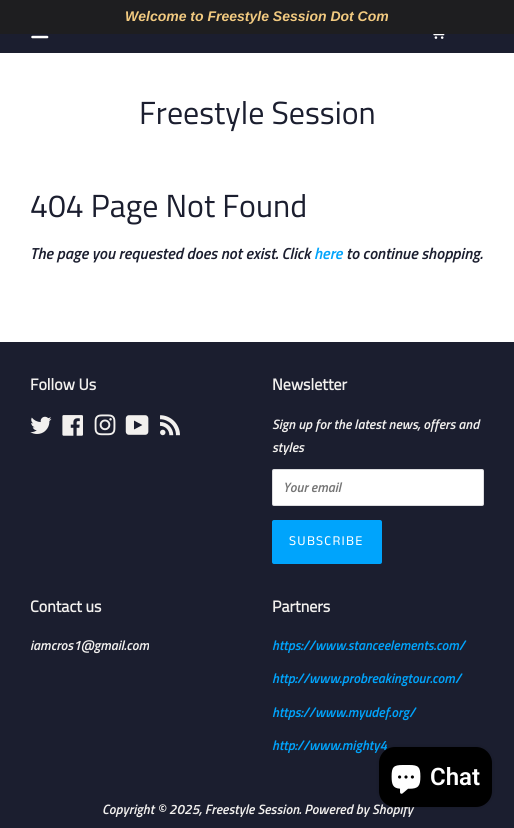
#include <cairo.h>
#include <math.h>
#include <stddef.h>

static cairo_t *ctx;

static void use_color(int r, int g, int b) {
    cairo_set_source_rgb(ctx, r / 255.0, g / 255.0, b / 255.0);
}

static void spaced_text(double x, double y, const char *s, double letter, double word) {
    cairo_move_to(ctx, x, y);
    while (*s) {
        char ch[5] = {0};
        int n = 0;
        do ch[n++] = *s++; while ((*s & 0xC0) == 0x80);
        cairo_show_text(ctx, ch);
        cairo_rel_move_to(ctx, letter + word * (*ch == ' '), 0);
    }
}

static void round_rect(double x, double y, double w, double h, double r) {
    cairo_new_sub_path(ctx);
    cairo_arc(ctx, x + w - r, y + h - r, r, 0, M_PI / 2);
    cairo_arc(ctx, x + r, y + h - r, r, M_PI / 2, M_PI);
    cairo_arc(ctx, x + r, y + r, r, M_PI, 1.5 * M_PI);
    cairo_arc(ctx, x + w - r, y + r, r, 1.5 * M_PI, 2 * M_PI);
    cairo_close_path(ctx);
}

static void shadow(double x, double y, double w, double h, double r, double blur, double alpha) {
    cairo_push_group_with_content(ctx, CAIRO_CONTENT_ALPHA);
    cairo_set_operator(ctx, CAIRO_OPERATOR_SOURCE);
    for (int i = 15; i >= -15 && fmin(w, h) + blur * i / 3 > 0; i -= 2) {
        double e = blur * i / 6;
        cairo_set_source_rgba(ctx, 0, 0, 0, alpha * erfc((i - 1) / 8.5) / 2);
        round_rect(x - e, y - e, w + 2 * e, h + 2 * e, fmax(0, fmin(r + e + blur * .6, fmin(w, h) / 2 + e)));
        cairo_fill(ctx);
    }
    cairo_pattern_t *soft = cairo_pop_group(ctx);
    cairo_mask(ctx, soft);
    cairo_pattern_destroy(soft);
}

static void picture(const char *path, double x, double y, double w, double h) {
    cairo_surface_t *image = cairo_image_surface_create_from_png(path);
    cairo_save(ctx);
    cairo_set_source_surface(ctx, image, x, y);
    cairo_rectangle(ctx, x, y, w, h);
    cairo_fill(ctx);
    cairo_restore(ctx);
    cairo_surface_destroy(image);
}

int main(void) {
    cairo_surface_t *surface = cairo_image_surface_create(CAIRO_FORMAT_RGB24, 514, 828);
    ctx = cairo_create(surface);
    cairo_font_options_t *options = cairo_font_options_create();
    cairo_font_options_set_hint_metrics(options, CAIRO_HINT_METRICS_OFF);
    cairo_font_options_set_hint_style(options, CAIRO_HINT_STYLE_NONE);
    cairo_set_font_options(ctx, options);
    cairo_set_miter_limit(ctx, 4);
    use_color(255, 255, 255);
    cairo_paint(ctx);
    use_color(30, 30, 32);
    cairo_rectangle(ctx, 0, 0, 514, 34);
    cairo_fill(ctx);
    cairo_select_font_face(ctx, "Liberation Sans", CAIRO_FONT_SLANT_ITALIC, CAIRO_FONT_WEIGHT_BOLD);
    cairo_set_font_size(ctx, 14);
    use_color(242, 202, 128);
    cairo_move_to(ctx, 125, 21);
    cairo_show_text(ctx, "Welcome to Freestyle Session Dot Com");
    use_color(27, 30, 47);
    cairo_rectangle(ctx, 0, 34, 514, 19);
    cairo_fill(ctx);
    picture("img1.png", 31, 35, 18, 4);
    picture("img2.png", 433, 34, 12, 5);
    cairo_select_font_face(ctx, "Titillium Web", CAIRO_FONT_SLANT_NORMAL, CAIRO_FONT_WEIGHT_NORMAL);
    cairo_set_font_size(ctx, 32);
    cairo_move_to(ctx, 139, 124);
    cairo_show_text(ctx, "Freestyle Session");
    cairo_move_to(ctx, 30, 217);
    cairo_show_text(ctx, "404 Page Not Found");
    cairo_select_font_face(ctx, "Titillium Web SemiBold", CAIRO_FONT_SLANT_ITALIC, CAIRO_FONT_WEIGHT_NORMAL);
    cairo_set_font_size(ctx, 16);
    cairo_move_to(ctx, 30, 259);
    cairo_show_text(ctx, "The page you requested does not exist. Click");
    use_color(0, 164, 252);
    cairo_move_to(ctx, 314, 259);
    cairo_show_text(ctx, "here");
    use_color(27, 30, 47);
    cairo_move_to(ctx, 346, 259);
    cairo_show_text(ctx, "to continue shopping.");
    cairo_rectangle(ctx, 0, 342, 514, 486);
    cairo_fill(ctx);
    cairo_select_font_face(ctx, "Titillium Web", CAIRO_FONT_SLANT_NORMAL, CAIRO_FONT_WEIGHT_BOLD);
    use_color(242, 240, 238);
    cairo_move_to(ctx, 30, 390);
    cairo_show_text(ctx, "Follow Us");
    picture("img3.png", 30, 416, 22, 18);
    picture("img4.png", 62, 415, 21, 21);
    picture("img5.png", 94, 414, 22, 22);
    picture("img6.png", 125, 415, 24, 20);
    picture("img7.png", 160, 415, 20, 21);
    cairo_move_to(ctx, 272, 390);
    cairo_show_text(ctx, "Newsletter");
    cairo_select_font_face(ctx, "Titillium Web SemiBold", CAIRO_FONT_SLANT_ITALIC, CAIRO_FONT_WEIGHT_NORMAL);
    cairo_set_font_size(ctx, 13.6);
    cairo_move_to(ctx, 272, 429);
    cairo_show_text(ctx, "Sign up for the latest news, offers and");
    cairo_move_to(ctx, 272, 452);
    cairo_show_text(ctx, "styles");
    use_color(255, 255, 255);
    round_rect(272, 469, 212, 37, 2);
    cairo_fill(ctx);
    round_rect(272.5, 469.5, 211, 36, 1.5);
    cairo_set_source_rgba(ctx, 0.106, 0.118, 0.184, 0.15);
    cairo_set_line_width(ctx, 1);
    cairo_stroke(ctx);
    use_color(117, 117, 117);
    cairo_move_to(ctx, 283, 492);
    cairo_show_text(ctx, "Your email");
    use_color(0, 164, 252);
    round_rect(272, 520, 110, 44, 2);
    cairo_fill(ctx);
    cairo_select_font_face(ctx, "Anek Tamil", CAIRO_FONT_SLANT_NORMAL, CAIRO_FONT_WEIGHT_NORMAL);
    use_color(255, 255, 255);
    spaced_text(289, 545, "SUBSCRIBE", 1.25, 0);
    cairo_select_font_face(ctx, "Titillium Web", CAIRO_FONT_SLANT_NORMAL, CAIRO_FONT_WEIGHT_BOLD);
    cairo_set_font_size(ctx, 16);
    use_color(242, 240, 238);
    cairo_move_to(ctx, 30, 612);
    cairo_show_text(ctx, "Contact us");
    cairo_select_font_face(ctx, "Titillium Web SemiBold", CAIRO_FONT_SLANT_ITALIC, CAIRO_FONT_WEIGHT_NORMAL);
    cairo_set_font_size(ctx, 13.6);
    cairo_move_to(ctx, 30, 650);
    cairo_show_text(ctx, "iamcros1@gmail.com");
    cairo_select_font_face(ctx, "Titillium Web", CAIRO_FONT_SLANT_NORMAL, CAIRO_FONT_WEIGHT_BOLD);
    cairo_set_font_size(ctx, 16);
    cairo_move_to(ctx, 272, 612);
    cairo_show_text(ctx, "Partners");
    cairo_select_font_face(ctx, "Titillium Web SemiBold", CAIRO_FONT_SLANT_ITALIC, CAIRO_FONT_WEIGHT_NORMAL);
    cairo_set_font_size(ctx, 13.6);
    use_color(0, 164, 252);
    cairo_move_to(ctx, 272, 650);
    cairo_show_text(ctx, "https://www.stanceelements.com/");
    cairo_move_to(ctx, 272, 683);
    cairo_show_text(ctx, "http://www.probreakingtour.com/");
    cairo_move_to(ctx, 272, 717);
    cairo_show_text(ctx, "https://www.myudef.org/");
    cairo_move_to(ctx, 272, 750);
    cairo_show_text(ctx, "http://www.mighty4");
    use_color(242, 240, 238);
    cairo_move_to(ctx, 102, 814);
    cairo_show_text(ctx, "Copyright © 2025, Freestyle Session. Powered by Shopify");
    use_color(0, 0, 0);
    shadow(379, 747, 113, 60, 16, 2.5, 0.15);
    use_color(0, 0, 0);
    round_rect(379, 747, 113, 60, 16);
    cairo_fill(ctx);
    picture("img8.png", 391, 765, 30, 29);
    cairo_select_font_face(ctx, "Roboto SemiBold", CAIRO_FONT_SLANT_NORMAL, CAIRO_FONT_WEIGHT_NORMAL);
    cairo_set_font_size(ctx, 24);
    use_color(255, 255, 255);
    cairo_move_to(ctx, 430, 785);
    cairo_show_text(ctx, "Chat");
    cairo_surface_write_to_png(surface, "result.png");
    cairo_font_options_destroy(options);
    cairo_destroy(ctx);
    cairo_surface_destroy(surface);
    return 0;
}
